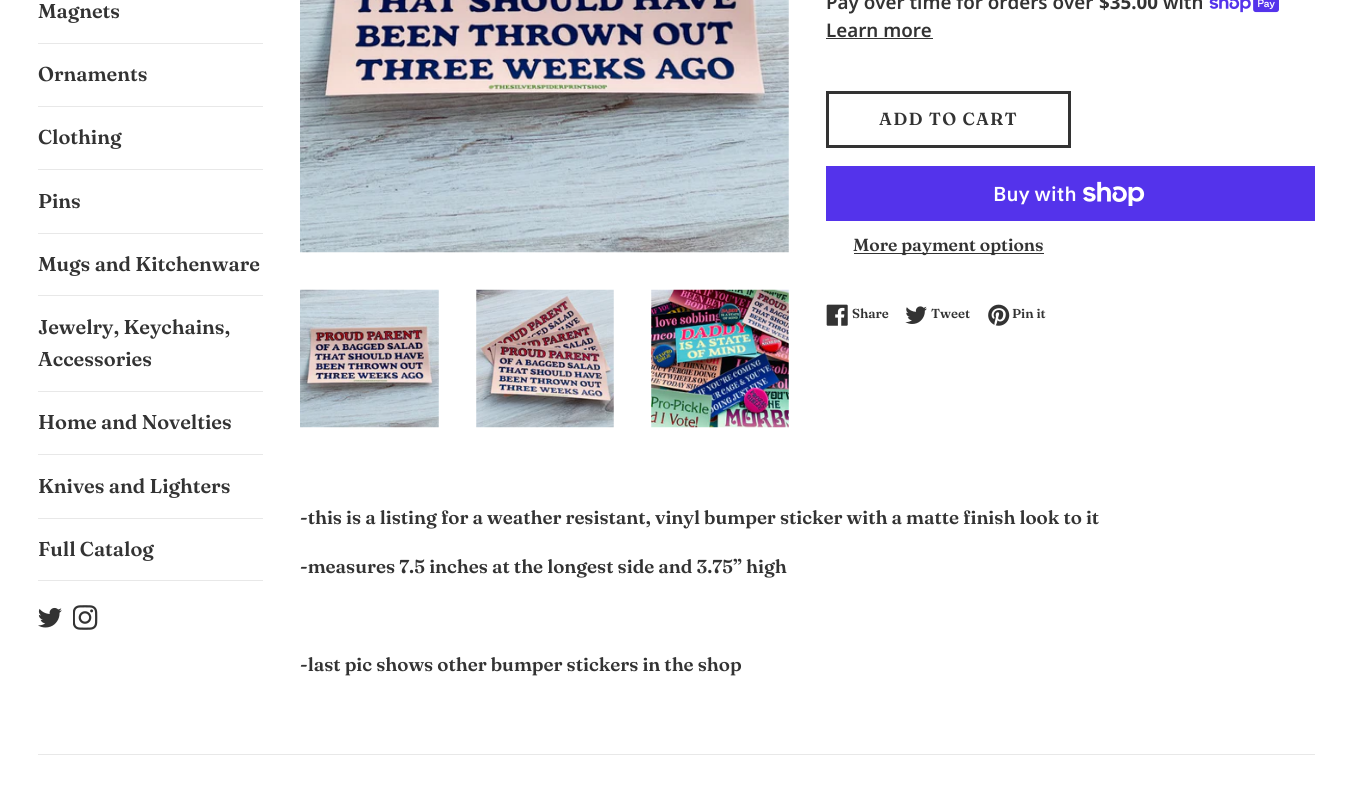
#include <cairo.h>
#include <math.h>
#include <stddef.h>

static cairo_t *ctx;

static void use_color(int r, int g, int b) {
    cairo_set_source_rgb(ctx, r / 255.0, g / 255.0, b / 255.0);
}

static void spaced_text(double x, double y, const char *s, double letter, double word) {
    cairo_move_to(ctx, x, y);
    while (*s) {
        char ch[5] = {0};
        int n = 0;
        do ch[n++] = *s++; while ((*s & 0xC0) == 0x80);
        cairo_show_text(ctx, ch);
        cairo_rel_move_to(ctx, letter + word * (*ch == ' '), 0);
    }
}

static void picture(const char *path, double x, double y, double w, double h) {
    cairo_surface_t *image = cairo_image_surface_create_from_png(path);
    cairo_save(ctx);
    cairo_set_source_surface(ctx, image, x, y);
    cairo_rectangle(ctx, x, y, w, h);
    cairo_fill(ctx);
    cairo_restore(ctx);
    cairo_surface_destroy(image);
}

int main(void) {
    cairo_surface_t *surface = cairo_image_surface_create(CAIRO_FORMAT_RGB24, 1352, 800);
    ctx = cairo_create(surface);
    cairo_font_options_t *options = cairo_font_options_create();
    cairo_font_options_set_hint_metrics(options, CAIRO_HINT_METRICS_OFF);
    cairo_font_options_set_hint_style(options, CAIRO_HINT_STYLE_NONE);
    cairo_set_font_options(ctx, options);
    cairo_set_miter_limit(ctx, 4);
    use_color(255, 255, 255);
    cairo_paint(ctx);
    use_color(232, 232, 232);
    cairo_rectangle(ctx, 38, 43, 225, 1);
    cairo_fill(ctx);
    cairo_select_font_face(ctx, "Fraunces SemiBold", CAIRO_FONT_SLANT_NORMAL, CAIRO_FONT_WEIGHT_NORMAL);
    cairo_set_font_size(ctx, 20);
    use_color(51, 51, 51);
    cairo_move_to(ctx, 38, 18);
    cairo_show_text(ctx, "Magnets");
    use_color(232, 232, 232);
    cairo_rectangle(ctx, 38, 106, 225, 1);
    cairo_fill(ctx);
    use_color(51, 51, 51);
    cairo_move_to(ctx, 38, 81);
    cairo_show_text(ctx, "Ornaments");
    use_color(232, 232, 232);
    cairo_rectangle(ctx, 38, 169, 225, 1);
    cairo_fill(ctx);
    use_color(51, 51, 51);
    cairo_move_to(ctx, 38, 144);
    cairo_show_text(ctx, "Clothing");
    use_color(232, 232, 232);
    cairo_rectangle(ctx, 38, 233, 225, 1);
    cairo_fill(ctx);
    use_color(51, 51, 51);
    cairo_move_to(ctx, 38, 208);
    cairo_show_text(ctx, "Pins");
    use_color(232, 232, 232);
    cairo_rectangle(ctx, 38, 295, 225, 1);
    cairo_fill(ctx);
    use_color(51, 51, 51);
    cairo_move_to(ctx, 38, 271);
    cairo_show_text(ctx, "Mugs and Kitchenware");
    use_color(232, 232, 232);
    cairo_rectangle(ctx, 38, 391, 225, 1);
    cairo_fill(ctx);
    use_color(51, 51, 51);
    cairo_move_to(ctx, 38, 334);
    cairo_show_text(ctx, "Jewelry, Keychains,");
    cairo_move_to(ctx, 38, 366);
    cairo_show_text(ctx, "Accessories");
    use_color(232, 232, 232);
    cairo_rectangle(ctx, 38, 454, 225, 1);
    cairo_fill(ctx);
    use_color(51, 51, 51);
    cairo_move_to(ctx, 38, 429);
    cairo_show_text(ctx, "Home and Novelties");
    use_color(232, 232, 232);
    cairo_rectangle(ctx, 38, 518, 225, 1);
    cairo_fill(ctx);
    use_color(51, 51, 51);
    cairo_move_to(ctx, 38, 493);
    cairo_show_text(ctx, "Knives and Lighters");
    use_color(232, 232, 232);
    cairo_rectangle(ctx, 38, 580, 225, 1);
    cairo_fill(ctx);
    use_color(51, 51, 51);
    cairo_move_to(ctx, 38, 556);
    cairo_show_text(ctx, "Full Catalog");
    picture("img1.png", 38, 607, 24, 21);
    picture("img2.png", 73, 605, 25, 25);
    picture("img3.png", 300, 0, 489, 253);
    picture("img4.png", 300, 289, 139, 139);
    picture("img5.png", 476, 289, 138, 139);
    picture("img6.png", 651, 289, 138, 139);
    cairo_select_font_face(ctx, "Noto Sans SemiBold", CAIRO_FONT_SLANT_NORMAL, CAIRO_FONT_WEIGHT_NORMAL);
    cairo_set_font_size(ctx, 18.75);
    cairo_move_to(ctx, 826, 9);
    cairo_show_text(ctx, "Pay over time for orders over");
    cairo_select_font_face(ctx, "Noto Sans", CAIRO_FONT_SLANT_NORMAL, CAIRO_FONT_WEIGHT_BOLD);
    cairo_move_to(ctx, 1099, 9);
    cairo_show_text(ctx, "$35.00");
    cairo_select_font_face(ctx, "Noto Sans SemiBold", CAIRO_FONT_SLANT_NORMAL, CAIRO_FONT_WEIGHT_NORMAL);
    cairo_move_to(ctx, 1163, 9);
    cairo_show_text(ctx, "with");
    picture("img7.png", 1209, 0, 70, 13);
    cairo_move_to(ctx, 826, 37);
    cairo_show_text(ctx, "Learn more");
    cairo_rectangle(ctx, 826, 38, 107, 1);
    cairo_fill(ctx);
    cairo_rectangle(ctx, 827.5, 92.5, 242, 54);
    cairo_set_line_width(ctx, 3);
    cairo_stroke(ctx);
    cairo_select_font_face(ctx, "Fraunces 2 SemiBold", CAIRO_FONT_SLANT_NORMAL, CAIRO_FONT_WEIGHT_NORMAL);
    cairo_set_font_size(ctx, 17.5);
    spaced_text(879, 125, "ADD TO CART", 1.25, 0);
    use_color(84, 51, 235);
    cairo_rectangle(ctx, 826, 166, 489, 55);
    cairo_fill(ctx);
    cairo_select_font_face(ctx, "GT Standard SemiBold", CAIRO_FONT_SLANT_NORMAL, CAIRO_FONT_WEIGHT_NORMAL);
    cairo_set_font_size(ctx, 20);
    use_color(255, 255, 255);
    cairo_move_to(ctx, 993, 201);
    cairo_show_text(ctx, "Buy with");
    picture("img8.png", 1083, 181, 62, 25);
    use_color(51, 51, 51);
    cairo_rectangle(ctx, 854, 253, 190, 1);
    cairo_fill(ctx);
    cairo_select_font_face(ctx, "Fraunces 2 SemiBold", CAIRO_FONT_SLANT_NORMAL, CAIRO_FONT_WEIGHT_NORMAL);
    cairo_set_font_size(ctx, 17.5);
    cairo_move_to(ctx, 853, 251);
    cairo_show_text(ctx, "More payment options");
    picture("img9.png", 826, 304, 22, 22);
    cairo_select_font_face(ctx, "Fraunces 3 SemiBold", CAIRO_FONT_SLANT_NORMAL, CAIRO_FONT_WEIGHT_NORMAL);
    cairo_set_font_size(ctx, 13);
    cairo_move_to(ctx, 852, 318);
    cairo_show_text(ctx, "Share");
    picture("img10.png", 905, 306, 22, 18);
    cairo_move_to(ctx, 931, 318);
    cairo_show_text(ctx, "Tweet");
    picture("img11.png", 988, 304, 22, 22);
    cairo_move_to(ctx, 1012, 318);
    cairo_show_text(ctx, "Pin it");
    cairo_select_font_face(ctx, "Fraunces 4 SemiBold", CAIRO_FONT_SLANT_NORMAL, CAIRO_FONT_WEIGHT_NORMAL);
    cairo_set_font_size(ctx, 18.75);
    cairo_move_to(ctx, 300, 524);
    cairo_show_text(ctx, "-this is a listing for a weather resistant, vinyl bumper sticker with a matte finish look to it");
    cairo_move_to(ctx, 300, 573);
    cairo_show_text(ctx, "-measures 7.5 inches at the longest side and 3.75” high");
    cairo_move_to(ctx, 300, 671);
    cairo_show_text(ctx, "-last pic shows other bumper stickers in the shop");
    use_color(232, 232, 232);
    cairo_rectangle(ctx, 38, 754, 1277, 1);
    cairo_fill(ctx);
    cairo_surface_write_to_png(surface, "result.png");
    cairo_font_options_destroy(options);
    cairo_destroy(ctx);
    cairo_surface_destroy(surface);
    return 0;
}
